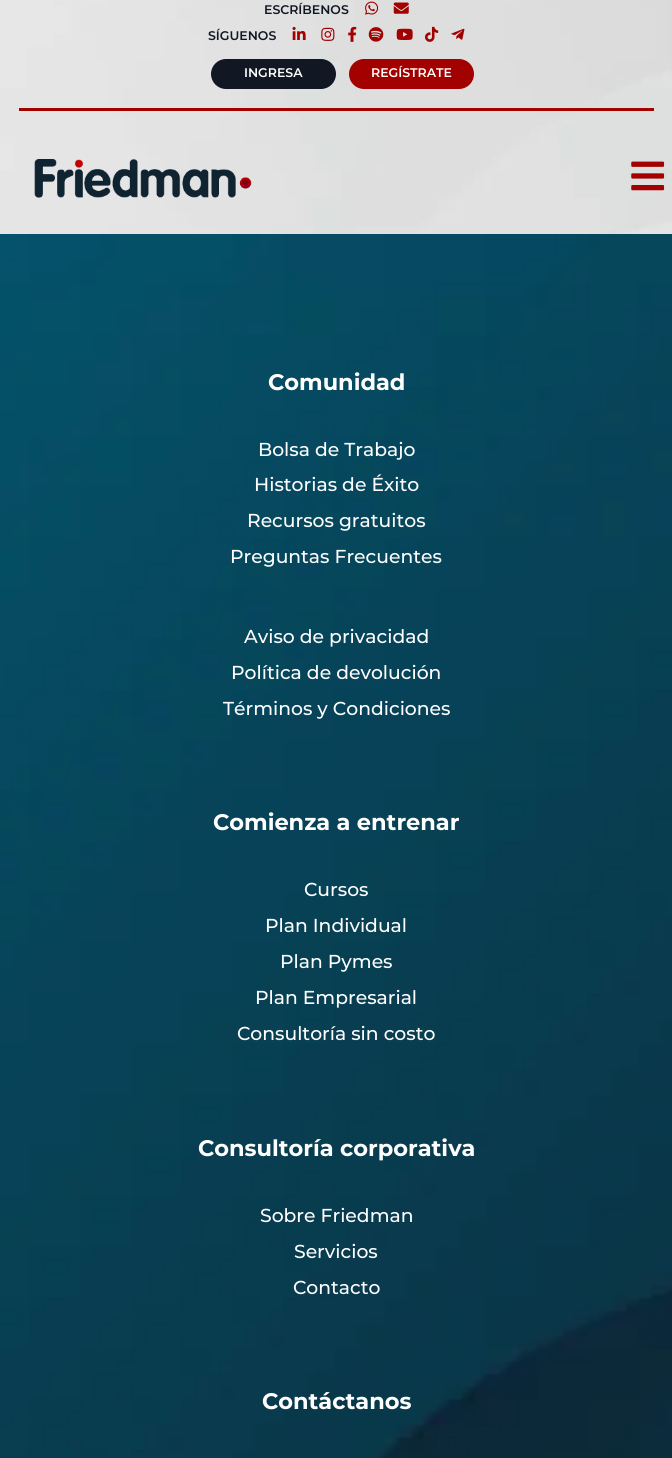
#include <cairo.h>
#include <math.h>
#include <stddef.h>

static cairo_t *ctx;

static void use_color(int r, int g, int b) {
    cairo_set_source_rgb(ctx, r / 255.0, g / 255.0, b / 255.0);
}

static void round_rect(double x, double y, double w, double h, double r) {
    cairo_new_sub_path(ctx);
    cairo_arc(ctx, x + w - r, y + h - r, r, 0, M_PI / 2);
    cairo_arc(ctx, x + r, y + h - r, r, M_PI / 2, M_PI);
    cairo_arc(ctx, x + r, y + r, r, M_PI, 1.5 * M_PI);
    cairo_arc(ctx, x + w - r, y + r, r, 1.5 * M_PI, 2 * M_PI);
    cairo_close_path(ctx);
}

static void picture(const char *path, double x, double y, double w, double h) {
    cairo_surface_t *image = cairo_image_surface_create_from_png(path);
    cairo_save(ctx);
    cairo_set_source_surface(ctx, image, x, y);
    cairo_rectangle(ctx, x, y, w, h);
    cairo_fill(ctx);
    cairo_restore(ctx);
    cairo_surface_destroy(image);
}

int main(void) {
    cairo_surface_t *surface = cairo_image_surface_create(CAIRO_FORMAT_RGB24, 672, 1458);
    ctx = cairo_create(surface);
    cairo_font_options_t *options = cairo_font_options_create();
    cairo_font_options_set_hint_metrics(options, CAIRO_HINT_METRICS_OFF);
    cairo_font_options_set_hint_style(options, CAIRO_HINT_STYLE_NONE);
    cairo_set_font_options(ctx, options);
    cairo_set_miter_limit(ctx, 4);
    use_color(255, 255, 255);
    cairo_paint(ctx);
    picture("img1.png", 0, 0, 672, 234);
    cairo_select_font_face(ctx, "Montserrat SemiBold", CAIRO_FONT_SLANT_NORMAL, CAIRO_FONT_WEIGHT_NORMAL);
    cairo_set_font_size(ctx, 12.5);
    use_color(17, 24, 35);
    cairo_move_to(ctx, 264, 14);
    cairo_show_text(ctx, "ESCRÍBENOS");
    picture("img2.png", 365, 1, 14, 14);
    picture("img3.png", 393, 2, 16, 12);
    cairo_move_to(ctx, 208, 40);
    cairo_show_text(ctx, "SÍGUENOS");
    picture("img4.png", 292, 26, 14, 14);
    picture("img5.png", 321, 27, 14, 14);
    picture("img6.png", 348, 26, 9, 16);
    picture("img7.png", 368, 27, 16, 15);
    picture("img8.png", 396, 28, 17, 12);
    picture("img9.png", 425, 26, 14, 16);
    picture("img10.png", 451, 28, 14, 12);
    round_rect(211, 59, 125, 30, 15);
    cairo_fill(ctx);
    use_color(255, 255, 255);
    cairo_move_to(ctx, 244, 77);
    cairo_show_text(ctx, "INGRESA");
    use_color(163, 0, 0);
    round_rect(349, 59, 125, 30, 15);
    cairo_fill(ctx);
    use_color(255, 255, 255);
    cairo_move_to(ctx, 371, 77);
    cairo_show_text(ctx, "REGÍSTRATE");
    use_color(163, 0, 0);
    cairo_rectangle(ctx, 19, 108, 635, 3);
    cairo_fill(ctx);
    picture("img11.png", 34, 159, 218, 39);
    picture("img12.png", 631, 161, 34, 30);
    picture("img13.png", 0, 234, 672, 1224);
    cairo_select_font_face(ctx, "Montserrat", CAIRO_FONT_SLANT_NORMAL, CAIRO_FONT_WEIGHT_BOLD);
    cairo_set_font_size(ctx, 22.5);
    use_color(255, 255, 255);
    cairo_move_to(ctx, 268, 390);
    cairo_show_text(ctx, "Comunidad");
    cairo_select_font_face(ctx, "Montserrat Medium", CAIRO_FONT_SLANT_NORMAL, CAIRO_FONT_WEIGHT_NORMAL);
    cairo_set_font_size(ctx, 18.75);
    cairo_move_to(ctx, 258, 456);
    cairo_show_text(ctx, "Bolsa de Trabajo");
    cairo_move_to(ctx, 254, 491);
    cairo_show_text(ctx, "Historias de Éxito");
    cairo_move_to(ctx, 247, 527);
    cairo_show_text(ctx, "Recursos gratuitos");
    cairo_move_to(ctx, 230, 563);
    cairo_show_text(ctx, "Preguntas Frecuentes");
    cairo_move_to(ctx, 244, 643);
    cairo_show_text(ctx, "Aviso de privacidad");
    cairo_move_to(ctx, 231, 679);
    cairo_show_text(ctx, "Política de devolución");
    cairo_move_to(ctx, 223, 715);
    cairo_show_text(ctx, "Términos y Condiciones");
    cairo_select_font_face(ctx, "Montserrat", CAIRO_FONT_SLANT_NORMAL, CAIRO_FONT_WEIGHT_BOLD);
    cairo_set_font_size(ctx, 22.5);
    cairo_move_to(ctx, 213, 830);
    cairo_show_text(ctx, "Comienza a entrenar");
    cairo_select_font_face(ctx, "Montserrat Medium", CAIRO_FONT_SLANT_NORMAL, CAIRO_FONT_WEIGHT_NORMAL);
    cairo_set_font_size(ctx, 18.75);
    cairo_move_to(ctx, 304, 896);
    cairo_show_text(ctx, "Cursos");
    cairo_move_to(ctx, 265, 932);
    cairo_show_text(ctx, "Plan Individual");
    cairo_move_to(ctx, 280, 968);
    cairo_show_text(ctx, "Plan Pymes");
    cairo_move_to(ctx, 255, 1004);
    cairo_show_text(ctx, "Plan Empresarial");
    cairo_move_to(ctx, 237, 1040);
    cairo_show_text(ctx, "Consultoría sin costo");
    cairo_select_font_face(ctx, "Montserrat", CAIRO_FONT_SLANT_NORMAL, CAIRO_FONT_WEIGHT_BOLD);
    cairo_set_font_size(ctx, 22.5);
    cairo_move_to(ctx, 198, 1156);
    cairo_show_text(ctx, "Consultoría corporativa");
    cairo_select_font_face(ctx, "Montserrat Medium", CAIRO_FONT_SLANT_NORMAL, CAIRO_FONT_WEIGHT_NORMAL);
    cairo_set_font_size(ctx, 18.75);
    cairo_move_to(ctx, 260, 1222);
    cairo_show_text(ctx, "Sobre Friedman");
    cairo_move_to(ctx, 294, 1258);
    cairo_show_text(ctx, "Servicios");
    cairo_move_to(ctx, 293, 1294);
    cairo_show_text(ctx, "Contacto");
    cairo_select_font_face(ctx, "Montserrat", CAIRO_FONT_SLANT_NORMAL, CAIRO_FONT_WEIGHT_BOLD);
    cairo_set_font_size(ctx, 22.5);
    cairo_move_to(ctx, 262, 1409);
    cairo_show_text(ctx, "Contáctanos");
    cairo_surface_write_to_png(surface, "result.png");
    cairo_font_options_destroy(options);
    cairo_destroy(ctx);
    cairo_surface_destroy(surface);
    return 0;
}
